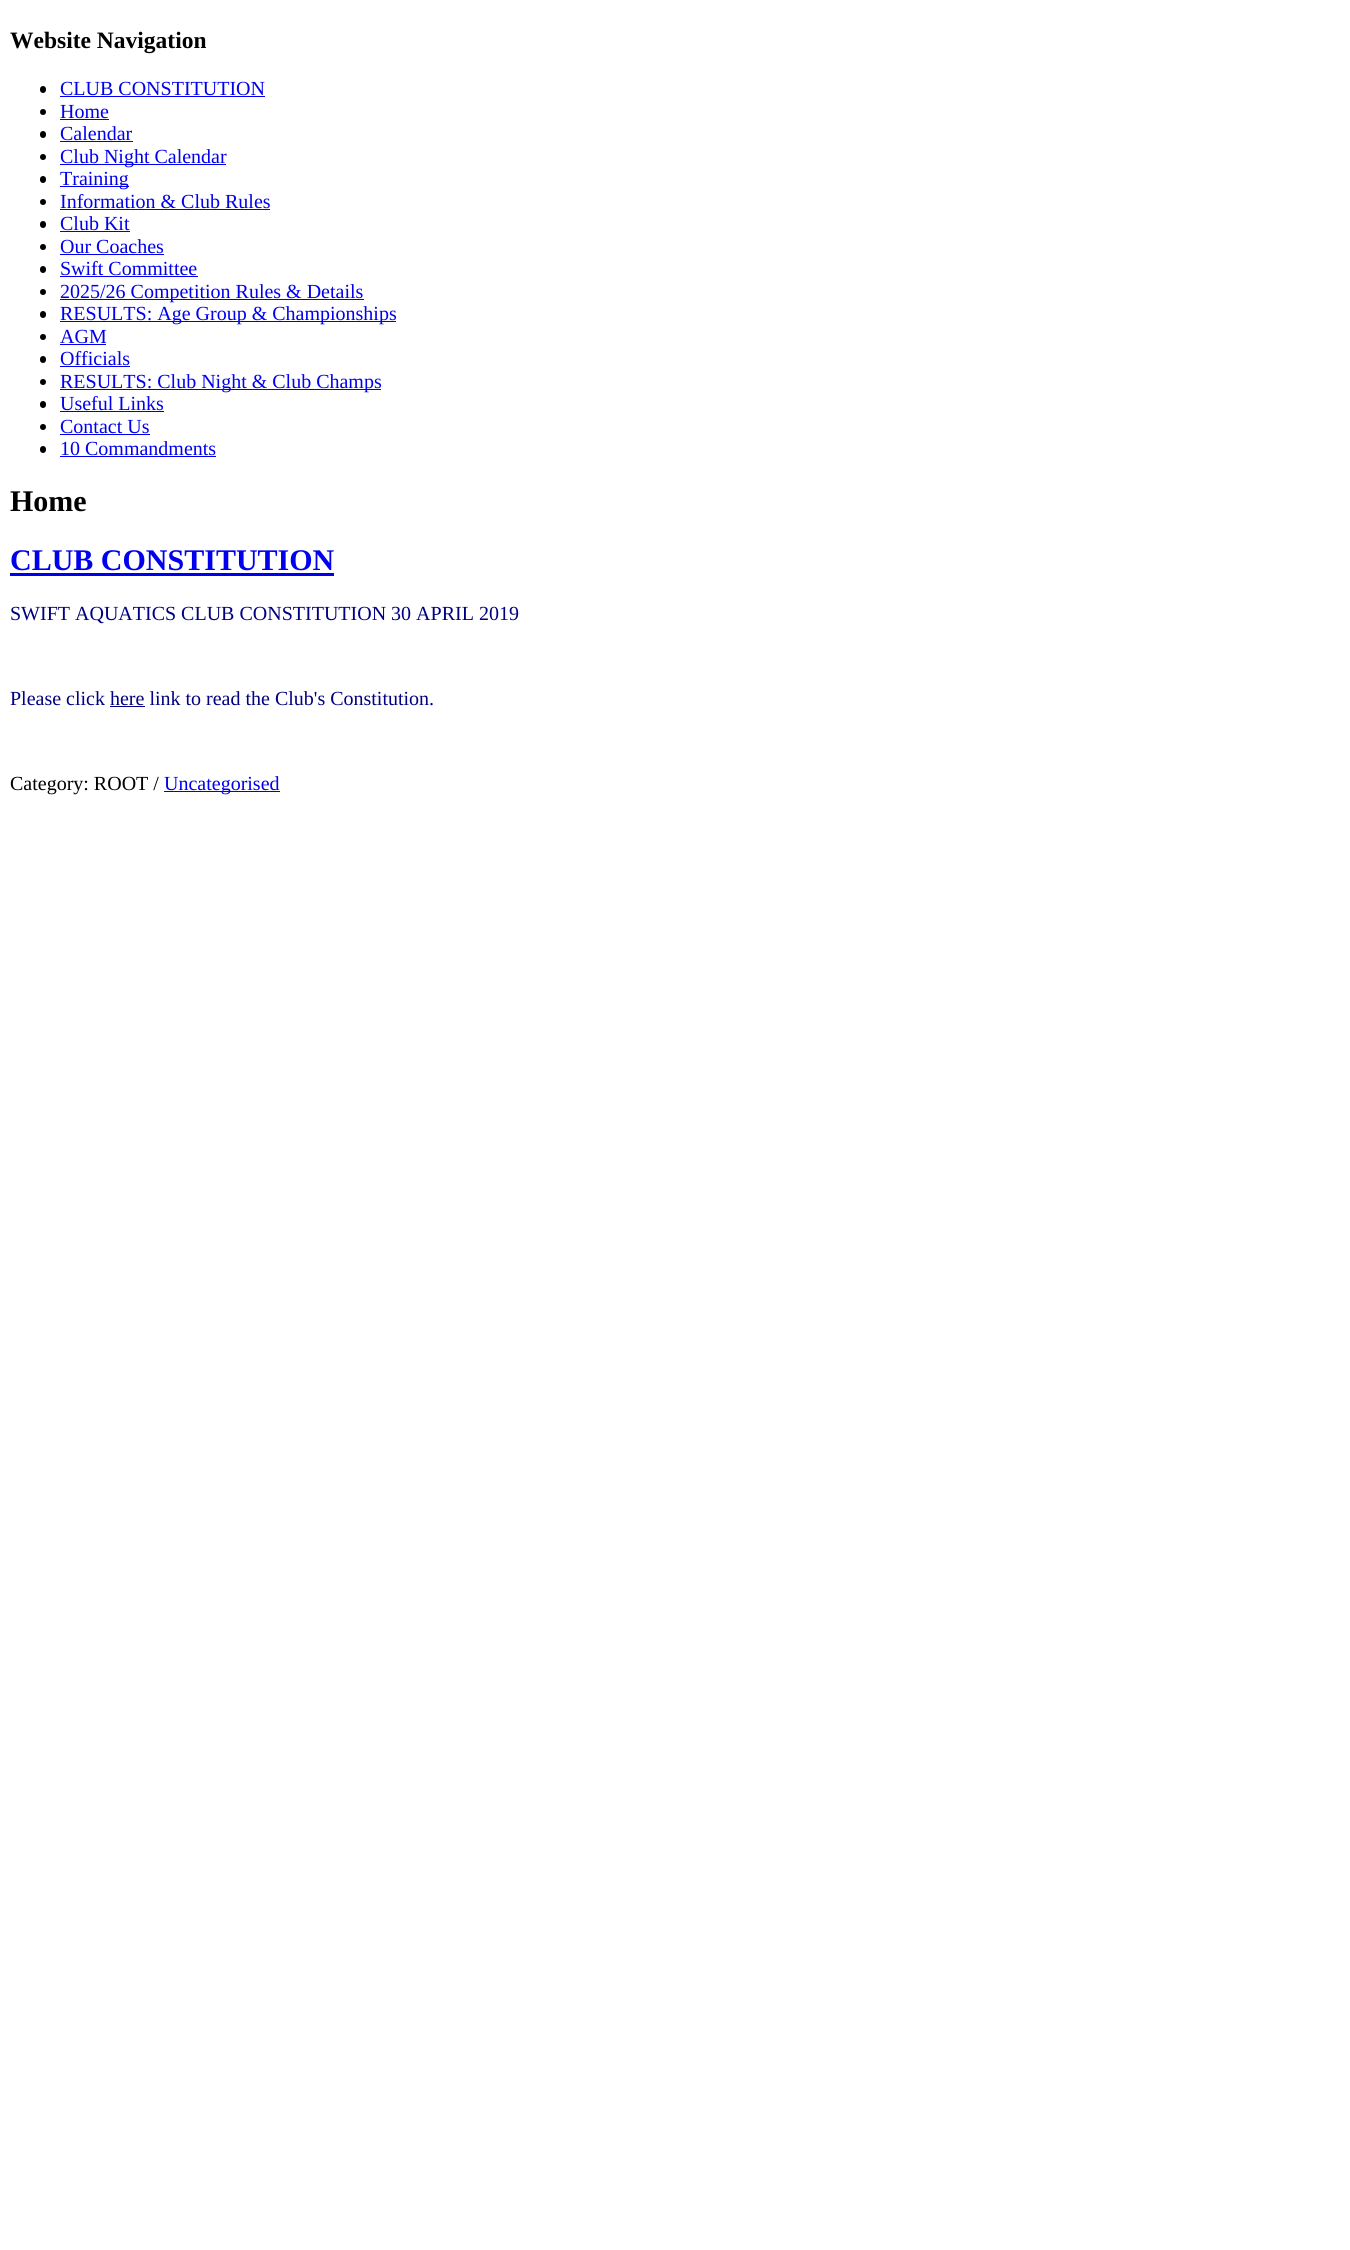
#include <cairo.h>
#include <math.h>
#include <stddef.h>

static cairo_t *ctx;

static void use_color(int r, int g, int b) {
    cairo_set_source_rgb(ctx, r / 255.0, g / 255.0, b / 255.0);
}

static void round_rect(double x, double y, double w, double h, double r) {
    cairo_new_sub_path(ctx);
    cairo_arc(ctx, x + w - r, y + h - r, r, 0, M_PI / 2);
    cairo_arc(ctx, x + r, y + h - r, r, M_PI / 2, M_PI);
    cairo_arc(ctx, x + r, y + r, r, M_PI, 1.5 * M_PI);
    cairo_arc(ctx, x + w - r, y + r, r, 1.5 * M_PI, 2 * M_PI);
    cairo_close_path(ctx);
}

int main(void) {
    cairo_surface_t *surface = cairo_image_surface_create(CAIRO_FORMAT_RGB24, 1350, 2250);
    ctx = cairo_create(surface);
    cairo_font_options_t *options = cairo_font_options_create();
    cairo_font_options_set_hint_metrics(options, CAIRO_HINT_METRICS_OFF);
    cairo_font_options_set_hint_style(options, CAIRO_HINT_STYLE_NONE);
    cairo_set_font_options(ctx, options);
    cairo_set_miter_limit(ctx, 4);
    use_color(255, 255, 255);
    cairo_paint(ctx);
    cairo_select_font_face(ctx, "Liberation Serif", CAIRO_FONT_SLANT_NORMAL, CAIRO_FONT_WEIGHT_BOLD);
    cairo_set_font_size(ctx, 23.5);
    use_color(0, 0, 0);
    cairo_move_to(ctx, 10, 48);
    cairo_show_text(ctx, "Website Navigation");
    round_rect(40, 86, 6, 7, 3);
    cairo_fill(ctx);
    cairo_select_font_face(ctx, "Liberation Serif", CAIRO_FONT_SLANT_NORMAL, CAIRO_FONT_WEIGHT_NORMAL);
    cairo_set_font_size(ctx, 20);
    use_color(0, 0, 238);
    cairo_move_to(ctx, 60, 95);
    cairo_show_text(ctx, "CLUB CONSTITUTION");
    cairo_rectangle(ctx, 60, 96, 205, 1);
    cairo_fill(ctx);
    use_color(0, 0, 0);
    cairo_arc(ctx, 43, 112, 3, 0, 2 * M_PI);
    cairo_fill(ctx);
    use_color(0, 0, 238);
    cairo_move_to(ctx, 60, 118);
    cairo_show_text(ctx, "Home");
    cairo_rectangle(ctx, 60, 119, 49, 1);
    cairo_fill(ctx);
    use_color(0, 0, 0);
    round_rect(40, 131, 6, 7, 3);
    cairo_fill(ctx);
    use_color(0, 0, 238);
    cairo_move_to(ctx, 60, 140);
    cairo_show_text(ctx, "Calendar");
    cairo_rectangle(ctx, 60, 141, 73, 1);
    cairo_fill(ctx);
    use_color(0, 0, 0);
    cairo_arc(ctx, 43, 157, 3, 0, 2 * M_PI);
    cairo_fill(ctx);
    use_color(0, 0, 238);
    cairo_rectangle(ctx, 60, 164, 166, 1);
    cairo_fill(ctx);
    cairo_move_to(ctx, 60, 163);
    cairo_show_text(ctx, "Club Night Calendar");
    use_color(0, 0, 0);
    round_rect(40, 176, 6, 7, 3);
    cairo_fill(ctx);
    use_color(0, 0, 238);
    cairo_rectangle(ctx, 60, 186, 69, 1);
    cairo_fill(ctx);
    cairo_move_to(ctx, 60, 185);
    cairo_show_text(ctx, "Training");
    use_color(0, 0, 0);
    cairo_new_path(ctx);
    cairo_arc(ctx, 43, 202, 3, 0, 2 * M_PI);
    cairo_fill(ctx);
    use_color(0, 0, 238);
    cairo_move_to(ctx, 60, 208);
    cairo_show_text(ctx, "Information & Club Rules");
    cairo_rectangle(ctx, 60, 209, 210, 1);
    cairo_fill(ctx);
    use_color(0, 0, 0);
    round_rect(40, 221, 6, 7, 3);
    cairo_fill(ctx);
    use_color(0, 0, 238);
    cairo_move_to(ctx, 60, 230);
    cairo_show_text(ctx, "Club Kit");
    cairo_rectangle(ctx, 60, 231, 70, 1);
    cairo_fill(ctx);
    use_color(0, 0, 0);
    cairo_arc(ctx, 43, 247, 3, 0, 2 * M_PI);
    cairo_fill(ctx);
    use_color(0, 0, 238);
    cairo_move_to(ctx, 60, 253);
    cairo_show_text(ctx, "Our Coaches");
    cairo_rectangle(ctx, 60, 254, 104, 1);
    cairo_fill(ctx);
    use_color(0, 0, 0);
    round_rect(40, 266, 6, 7, 3);
    cairo_fill(ctx);
    use_color(0, 0, 238);
    cairo_move_to(ctx, 60, 275);
    cairo_show_text(ctx, "Swift Committee");
    cairo_rectangle(ctx, 60, 276, 138, 1);
    cairo_fill(ctx);
    use_color(0, 0, 0);
    cairo_arc(ctx, 43, 292, 3, 0, 2 * M_PI);
    cairo_fill(ctx);
    use_color(0, 0, 238);
    cairo_rectangle(ctx, 60, 299, 304, 1);
    cairo_fill(ctx);
    cairo_move_to(ctx, 60, 298);
    cairo_show_text(ctx, "2025/26 Competition Rules & Details");
    use_color(0, 0, 0);
    round_rect(40, 311, 6, 7, 3);
    cairo_fill(ctx);
    use_color(0, 0, 238);
    cairo_rectangle(ctx, 60, 321, 336, 1);
    cairo_fill(ctx);
    cairo_move_to(ctx, 60, 320);
    cairo_show_text(ctx, "RESULTS: Age Group & Championships");
    use_color(0, 0, 0);
    cairo_new_path(ctx);
    cairo_arc(ctx, 43, 337, 3, 0, 2 * M_PI);
    cairo_fill(ctx);
    use_color(0, 0, 238);
    cairo_move_to(ctx, 60, 343);
    cairo_show_text(ctx, "AGM");
    cairo_rectangle(ctx, 60, 344, 46, 1);
    cairo_fill(ctx);
    use_color(0, 0, 0);
    round_rect(40, 356, 6, 7, 3);
    cairo_fill(ctx);
    use_color(0, 0, 238);
    cairo_move_to(ctx, 60, 365);
    cairo_show_text(ctx, "Officials");
    cairo_rectangle(ctx, 60, 366, 70, 1);
    cairo_fill(ctx);
    use_color(0, 0, 0);
    cairo_arc(ctx, 43, 382, 3, 0, 2 * M_PI);
    cairo_fill(ctx);
    use_color(0, 0, 238);
    cairo_rectangle(ctx, 60, 389, 321, 1);
    cairo_fill(ctx);
    cairo_move_to(ctx, 60, 388);
    cairo_show_text(ctx, "RESULTS: Club Night & Club Champs");
    use_color(0, 0, 0);
    round_rect(40, 401, 6, 7, 3);
    cairo_fill(ctx);
    use_color(0, 0, 238);
    cairo_move_to(ctx, 60, 410);
    cairo_show_text(ctx, "Useful Links");
    cairo_rectangle(ctx, 60, 411, 104, 1);
    cairo_fill(ctx);
    use_color(0, 0, 0);
    cairo_arc(ctx, 43, 427, 3, 0, 2 * M_PI);
    cairo_fill(ctx);
    use_color(0, 0, 238);
    cairo_move_to(ctx, 60, 433);
    cairo_show_text(ctx, "Contact Us");
    cairo_rectangle(ctx, 60, 434, 90, 1);
    cairo_fill(ctx);
    use_color(0, 0, 0);
    round_rect(40, 446, 6, 7, 3);
    cairo_fill(ctx);
    use_color(0, 0, 238);
    cairo_move_to(ctx, 60, 455);
    cairo_show_text(ctx, "10 Commandments");
    cairo_rectangle(ctx, 60, 456, 156, 1);
    cairo_fill(ctx);
    cairo_select_font_face(ctx, "Liberation Serif", CAIRO_FONT_SLANT_NORMAL, CAIRO_FONT_WEIGHT_BOLD);
    cairo_set_font_size(ctx, 30);
    use_color(0, 0, 0);
    cairo_move_to(ctx, 10, 511);
    cairo_show_text(ctx, "Home");
    use_color(0, 0, 238);
    cairo_move_to(ctx, 10, 570);
    cairo_show_text(ctx, "CLUB CONSTITUTION");
    cairo_rectangle(ctx, 10, 573, 324, 3);
    cairo_fill(ctx);
    cairo_select_font_face(ctx, "Liberation Serif", CAIRO_FONT_SLANT_NORMAL, CAIRO_FONT_WEIGHT_NORMAL);
    cairo_set_font_size(ctx, 20);
    use_color(0, 0, 128);
    cairo_move_to(ctx, 10, 620);
    cairo_show_text(ctx, "SWIFT AQUATICS CLUB CONSTITUTION 30 APRIL 2019");
    cairo_move_to(ctx, 10, 705);
    cairo_show_text(ctx, "Please click here link to read the Club's Constitution.");
    cairo_rectangle(ctx, 110, 706, 35, 1);
    cairo_fill(ctx);
    use_color(0, 0, 0);
    cairo_move_to(ctx, 10, 790);
    cairo_show_text(ctx, "Category: ROOT /");
    use_color(0, 0, 238);
    cairo_rectangle(ctx, 164, 791, 116, 1);
    cairo_fill(ctx);
    cairo_move_to(ctx, 164, 790);
    cairo_show_text(ctx, "Uncategorised");
    cairo_surface_write_to_png(surface, "result.png");
    cairo_font_options_destroy(options);
    cairo_destroy(ctx);
    cairo_surface_destroy(surface);
    return 0;
}
